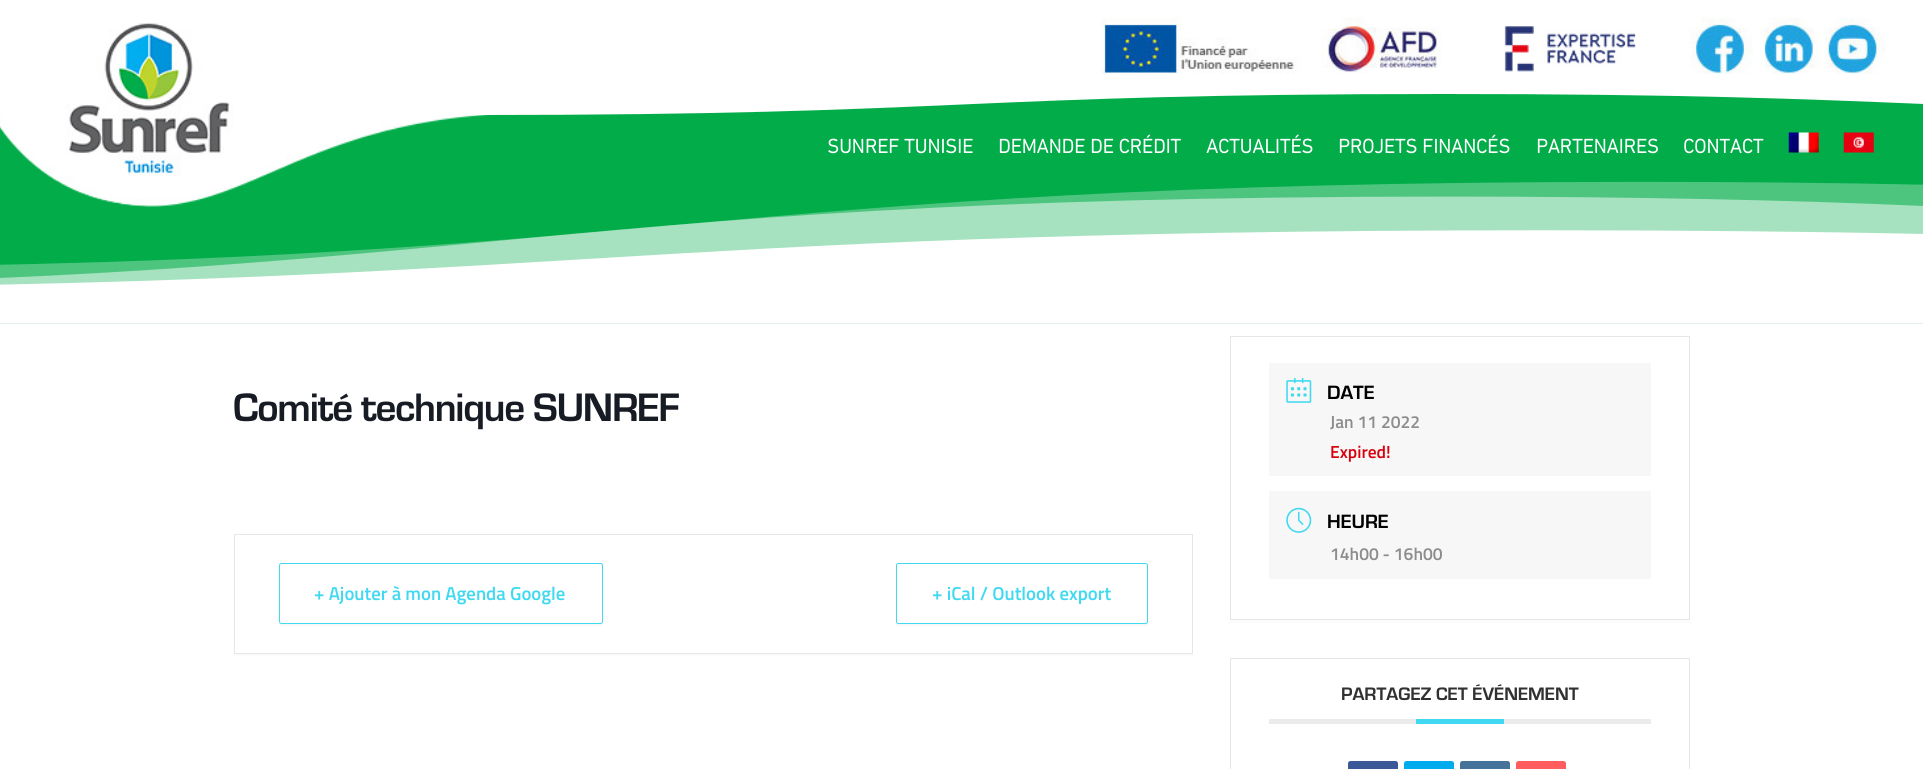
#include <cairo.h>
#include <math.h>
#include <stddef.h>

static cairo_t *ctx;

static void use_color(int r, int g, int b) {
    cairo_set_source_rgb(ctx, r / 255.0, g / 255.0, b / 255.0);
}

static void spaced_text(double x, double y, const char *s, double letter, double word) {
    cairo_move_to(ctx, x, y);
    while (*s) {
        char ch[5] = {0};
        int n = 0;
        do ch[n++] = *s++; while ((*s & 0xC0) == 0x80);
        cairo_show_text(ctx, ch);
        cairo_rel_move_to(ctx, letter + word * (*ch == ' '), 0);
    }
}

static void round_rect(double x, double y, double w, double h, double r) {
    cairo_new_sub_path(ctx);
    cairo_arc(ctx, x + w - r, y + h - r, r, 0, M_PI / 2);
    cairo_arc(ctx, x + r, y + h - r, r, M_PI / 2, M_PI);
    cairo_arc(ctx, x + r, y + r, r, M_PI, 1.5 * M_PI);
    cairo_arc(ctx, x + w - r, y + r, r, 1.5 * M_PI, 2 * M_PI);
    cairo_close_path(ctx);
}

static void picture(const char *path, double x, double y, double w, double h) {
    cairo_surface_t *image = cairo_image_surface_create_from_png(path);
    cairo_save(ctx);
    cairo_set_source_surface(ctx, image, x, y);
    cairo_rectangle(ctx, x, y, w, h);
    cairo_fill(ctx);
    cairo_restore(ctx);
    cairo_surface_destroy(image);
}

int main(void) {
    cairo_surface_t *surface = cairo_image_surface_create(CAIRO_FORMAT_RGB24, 1923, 769);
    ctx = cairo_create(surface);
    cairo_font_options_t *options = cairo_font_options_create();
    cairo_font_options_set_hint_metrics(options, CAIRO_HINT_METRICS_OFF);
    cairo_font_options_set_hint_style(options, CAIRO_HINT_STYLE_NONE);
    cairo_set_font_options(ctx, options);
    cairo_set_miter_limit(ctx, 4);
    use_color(255, 255, 255);
    cairo_paint(ctx);
    use_color(1, 172, 73);
    cairo_rectangle(ctx, 0, 94, 1923, 230);
    cairo_fill(ctx);
    use_color(255, 255, 255);
    cairo_new_path(ctx);
    cairo_move_to(ctx, 481, 115);
    cairo_curve_to(ctx, 962, 115, 962, 94, 1443, 94);
    cairo_curve_to(ctx, 1683, 94, 1804, 99, 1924, 104);
    cairo_line_to(ctx, 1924, 86);
    cairo_line_to(ctx, 0, 86);
    cairo_line_to(ctx, 0, 104);
    cairo_curve_to(ctx, 120, 110, 240, 115, 481, 115);
    cairo_close_path(ctx);
    cairo_fill(ctx);
    picture("img10.png", 0, 181, 1923, 143);
    picture("img1.png", 0, 22, 501, 185);
    picture("img2.png", 1101, 18, 224, 56);
    picture("img3.png", 1325, 17, 116, 57);
    picture("img4.png", 1504, 25, 132, 47);
    picture("img5.png", 1688, 17, 65, 57);
    picture("img6.png", 1760, 17, 61, 57);
    picture("img7.png", 1824, 17, 62, 57);
    cairo_select_font_face(ctx, "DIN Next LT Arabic", CAIRO_FONT_SLANT_NORMAL, CAIRO_FONT_WEIGHT_BOLD);
    cairo_set_font_size(ctx, 20);
    cairo_move_to(ctx, 827, 153);
    cairo_show_text(ctx, "SUNREF TUNISIE");
    cairo_move_to(ctx, 998, 153);
    cairo_show_text(ctx, "DEMANDE DE CRÉDIT");
    cairo_move_to(ctx, 1206, 153);
    cairo_show_text(ctx, "ACTUALITÉS");
    cairo_move_to(ctx, 1338, 153);
    cairo_show_text(ctx, "PROJETS FINANCÉS");
    cairo_move_to(ctx, 1536, 153);
    cairo_show_text(ctx, "PARTENAIRES");
    cairo_move_to(ctx, 1683, 153);
    cairo_show_text(ctx, "CONTACT");
    picture("img8.png", 1788, 132, 31, 21);
    picture("img9.png", 1843, 132, 31, 21);
    cairo_select_font_face(ctx, "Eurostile", CAIRO_FONT_SLANT_NORMAL, CAIRO_FONT_WEIGHT_BOLD);
    cairo_set_font_size(ctx, 41.25);
    use_color(23, 28, 36);
    spaced_text(233, 421, "Comité technique SUNREF", -1.25, 0);
    use_color(251, 251, 251);
    cairo_new_path(ctx);
    cairo_move_to(ctx, 234, 654);
    cairo_line_to(ctx, 234, 656);
    cairo_line_to(ctx, 1193, 656);
    cairo_line_to(ctx, 1193, 536);
    cairo_line_to(ctx, 1192, 536);
    cairo_line_to(ctx, 1192, 654);
    cairo_close_path(ctx);
    cairo_fill(ctx);
    cairo_rectangle(ctx, 234.5, 534.5, 958, 119);
    use_color(230, 230, 230);
    cairo_set_line_width(ctx, 1);
    cairo_stroke(ctx);
    use_color(247, 247, 247);
    cairo_new_path(ctx);
    cairo_move_to(ctx, 279, 622);
    cairo_line_to(ctx, 279, 624);
    cairo_curve_to(ctx, 279, 625, 280, 626, 282, 626);
    cairo_line_to(ctx, 600, 626);
    cairo_curve_to(ctx, 602, 626, 603, 625, 603, 624);
    cairo_line_to(ctx, 603, 568);
    cairo_line_to(ctx, 602, 566);
    cairo_line_to(ctx, 602, 621);
    cairo_curve_to(ctx, 602, 623, 601, 624, 600, 624);
    cairo_line_to(ctx, 281, 624);
    cairo_curve_to(ctx, 280, 624, 279, 623, 279, 622);
    cairo_close_path(ctx);
    cairo_fill(ctx);
    use_color(255, 255, 255);
    round_rect(279.5, 563.5, 323, 60, 2);
    cairo_fill_preserve(ctx);
    use_color(64, 217, 241);
    cairo_stroke(ctx);
    cairo_select_font_face(ctx, "Titillium Web SemiBold", CAIRO_FONT_SLANT_NORMAL, CAIRO_FONT_WEIGHT_NORMAL);
    cairo_set_font_size(ctx, 18.75);
    cairo_move_to(ctx, 314, 600);
    cairo_show_text(ctx, "+ Ajouter à mon Agenda Google");
    use_color(247, 247, 247);
    cairo_new_path(ctx);
    cairo_move_to(ctx, 896, 566);
    cairo_line_to(ctx, 896, 624);
    cairo_curve_to(ctx, 896, 625, 897, 626, 898, 626);
    cairo_line_to(ctx, 1146, 626);
    cairo_curve_to(ctx, 1147, 626, 1148, 625, 1148, 624);
    cairo_line_to(ctx, 1148, 568);
    cairo_line_to(ctx, 1148, 566);
    cairo_line_to(ctx, 1148, 621);
    cairo_curve_to(ctx, 1148, 623, 1146, 624, 1145, 624);
    cairo_line_to(ctx, 899, 624);
    cairo_curve_to(ctx, 897, 624, 896, 623, 896, 621);
    cairo_close_path(ctx);
    cairo_fill(ctx);
    use_color(255, 255, 255);
    round_rect(896.5, 563.5, 251, 60, 2);
    cairo_fill_preserve(ctx);
    use_color(64, 217, 241);
    cairo_stroke(ctx);
    cairo_move_to(ctx, 932, 600);
    cairo_show_text(ctx, "+ iCal / Outlook export");
    use_color(251, 251, 251);
    cairo_rectangle(ctx, 1230, 620, 460, 3);
    cairo_fill(ctx);
    cairo_rectangle(ctx, 1230.5, 336.5, 459, 283);
    use_color(230, 230, 230);
    cairo_stroke(ctx);
    use_color(247, 247, 247);
    cairo_rectangle(ctx, 1269, 363, 382, 113);
    cairo_fill(ctx);
    picture("img11.png", 1286, 377, 26, 26);
    cairo_select_font_face(ctx, "Eurostile", CAIRO_FONT_SLANT_NORMAL, CAIRO_FONT_WEIGHT_BOLD);
    cairo_set_font_size(ctx, 20);
    use_color(0, 0, 0);
    cairo_move_to(ctx, 1327, 399);
    cairo_show_text(ctx, "DATE");
    cairo_select_font_face(ctx, "Titillium Web SemiBold", CAIRO_FONT_SLANT_NORMAL, CAIRO_FONT_WEIGHT_NORMAL);
    cairo_set_font_size(ctx, 17.5);
    use_color(141, 141, 141);
    cairo_move_to(ctx, 1330, 428);
    cairo_show_text(ctx, "Jan 11 2022");
    use_color(216, 0, 12);
    cairo_move_to(ctx, 1330, 458);
    cairo_show_text(ctx, "Expired!");
    use_color(247, 247, 247);
    cairo_rectangle(ctx, 1269, 491, 382, 88);
    cairo_fill(ctx);
    picture("img12.png", 1286, 507, 26, 26);
    cairo_select_font_face(ctx, "Eurostile", CAIRO_FONT_SLANT_NORMAL, CAIRO_FONT_WEIGHT_BOLD);
    cairo_set_font_size(ctx, 20);
    use_color(0, 0, 0);
    cairo_move_to(ctx, 1327, 528);
    cairo_show_text(ctx, "HEURE");
    cairo_select_font_face(ctx, "Titillium Web SemiBold", CAIRO_FONT_SLANT_NORMAL, CAIRO_FONT_WEIGHT_NORMAL);
    cairo_set_font_size(ctx, 17.5);
    use_color(141, 141, 141);
    cairo_move_to(ctx, 1330, 560);
    cairo_show_text(ctx, "14h00 - 16h00");
    cairo_rectangle(ctx, 1230.5, 658.5, 459, 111);
    use_color(230, 230, 230);
    cairo_stroke(ctx);
    use_color(235, 235, 235);
    cairo_rectangle(ctx, 1269, 719, 382, 5);
    cairo_fill(ctx);
    cairo_select_font_face(ctx, "Eurostile", CAIRO_FONT_SLANT_NORMAL, CAIRO_FONT_WEIGHT_BOLD);
    cairo_set_font_size(ctx, 18.75);
    use_color(49, 49, 49);
    cairo_move_to(ctx, 1341, 700);
    cairo_show_text(ctx, "PARTAGEZ CET ÉVÉNEMENT");
    use_color(64, 217, 241);
    cairo_rectangle(ctx, 1416, 719, 88, 5);
    cairo_fill(ctx);
    use_color(59, 89, 150);
    round_rect(1348, 761, 50, 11, 2.5);
    cairo_fill(ctx);
    use_color(0, 172, 238);
    round_rect(1404, 761, 50, 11, 2.5);
    cairo_fill(ctx);
    use_color(69, 115, 153);
    round_rect(1460, 761, 50, 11, 2.5);
    cairo_fill(ctx);
    use_color(255, 93, 94);
    round_rect(1516, 761, 50, 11, 2.5);
    cairo_fill(ctx);
    cairo_surface_write_to_png(surface, "result.png");
    cairo_font_options_destroy(options);
    cairo_destroy(ctx);
    cairo_surface_destroy(surface);
    return 0;
}
